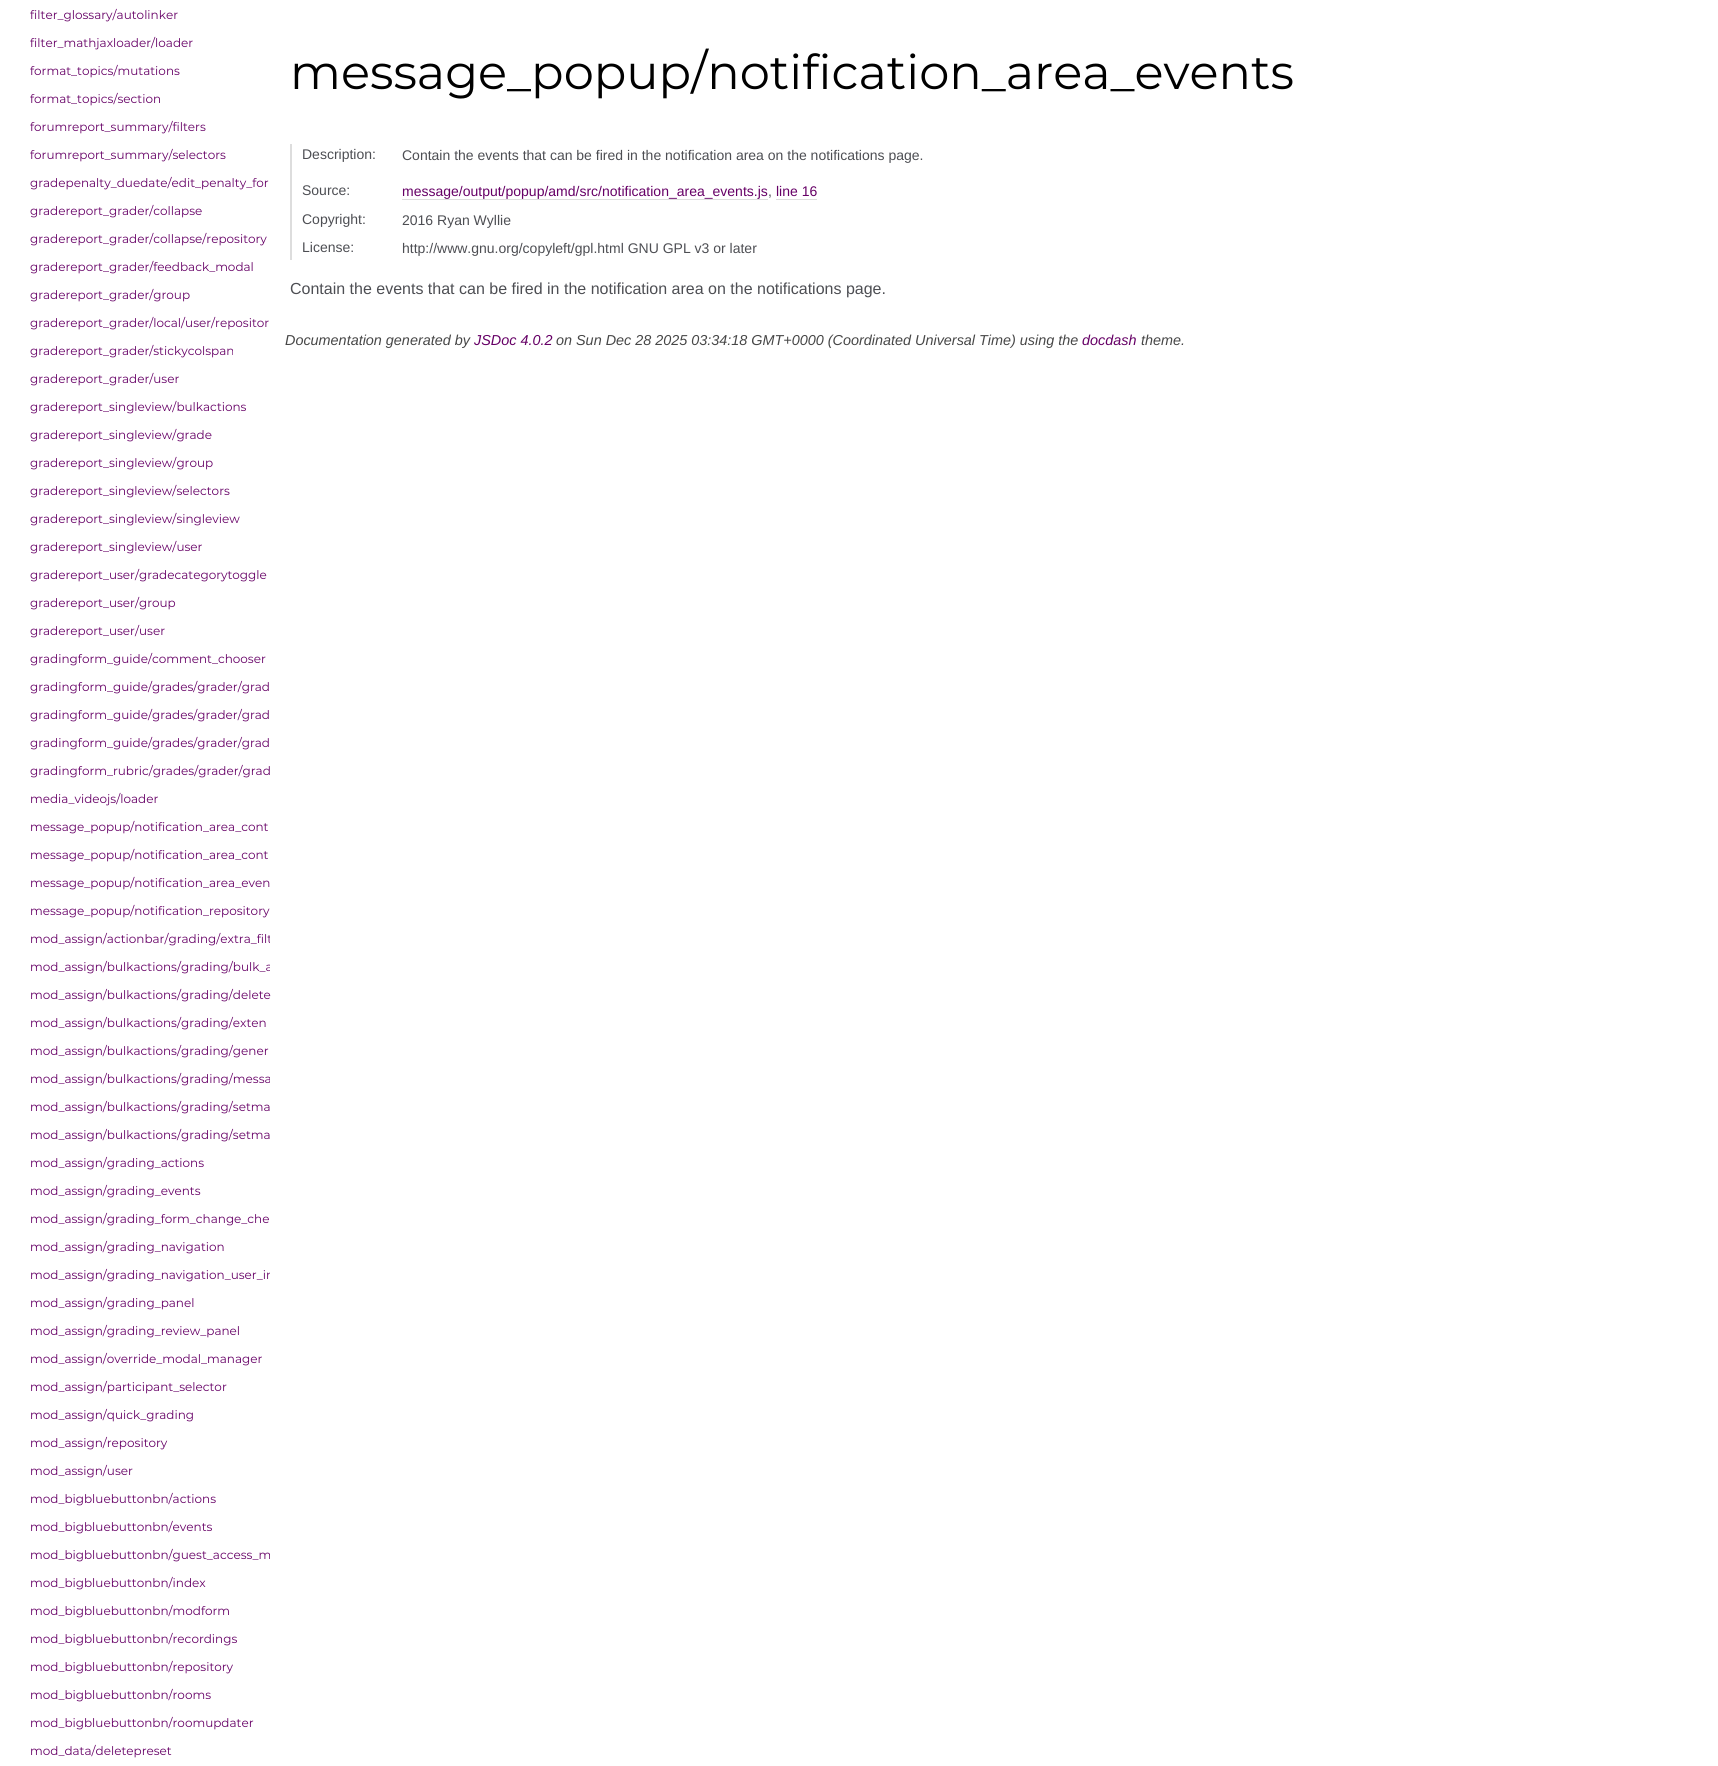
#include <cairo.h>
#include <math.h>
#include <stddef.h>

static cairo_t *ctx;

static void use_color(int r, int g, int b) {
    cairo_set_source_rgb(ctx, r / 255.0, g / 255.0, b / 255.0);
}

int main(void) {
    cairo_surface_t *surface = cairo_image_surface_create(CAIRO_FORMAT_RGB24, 1718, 1766);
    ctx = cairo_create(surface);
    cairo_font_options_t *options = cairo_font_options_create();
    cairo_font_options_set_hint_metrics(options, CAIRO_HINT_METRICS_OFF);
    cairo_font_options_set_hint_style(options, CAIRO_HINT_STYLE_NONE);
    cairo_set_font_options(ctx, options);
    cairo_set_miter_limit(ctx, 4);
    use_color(255, 255, 255);
    cairo_paint(ctx);
    cairo_select_font_face(ctx, "Montserrat", CAIRO_FONT_SLANT_NORMAL, CAIRO_FONT_WEIGHT_NORMAL);
    cairo_set_font_size(ctx, 12);
    use_color(102, 0, 102);
    cairo_move_to(ctx, 30, 19);
    cairo_show_text(ctx, "filter_glossary/autolinker");
    cairo_move_to(ctx, 30, 47);
    cairo_show_text(ctx, "filter_mathjaxloader/loader");
    cairo_move_to(ctx, 30, 75);
    cairo_show_text(ctx, "format_topics/mutations");
    cairo_move_to(ctx, 30, 103);
    cairo_show_text(ctx, "format_topics/section");
    cairo_move_to(ctx, 30, 131);
    cairo_show_text(ctx, "forumreport_summary/filters");
    cairo_move_to(ctx, 30, 159);
    cairo_show_text(ctx, "forumreport_summary/selectors");
    cairo_move_to(ctx, 30, 187);
    cairo_show_text(ctx, "gradepenalty_duedate/edit_penalty_for");
    cairo_move_to(ctx, 30, 215);
    cairo_show_text(ctx, "gradereport_grader/collapse");
    cairo_move_to(ctx, 30, 243);
    cairo_show_text(ctx, "gradereport_grader/collapse/repository");
    cairo_move_to(ctx, 30, 271);
    cairo_show_text(ctx, "gradereport_grader/feedback_modal");
    cairo_move_to(ctx, 30, 299);
    cairo_show_text(ctx, "gradereport_grader/group");
    cairo_move_to(ctx, 30, 327);
    cairo_show_text(ctx, "gradereport_grader/local/user/repositor");
    cairo_move_to(ctx, 30, 355);
    cairo_show_text(ctx, "gradereport_grader/stickycolspan");
    cairo_move_to(ctx, 30, 383);
    cairo_show_text(ctx, "gradereport_grader/user");
    cairo_move_to(ctx, 30, 411);
    cairo_show_text(ctx, "gradereport_singleview/bulkactions");
    cairo_move_to(ctx, 30, 439);
    cairo_show_text(ctx, "gradereport_singleview/grade");
    cairo_move_to(ctx, 30, 467);
    cairo_show_text(ctx, "gradereport_singleview/group");
    cairo_move_to(ctx, 30, 495);
    cairo_show_text(ctx, "gradereport_singleview/selectors");
    cairo_move_to(ctx, 30, 523);
    cairo_show_text(ctx, "gradereport_singleview/singleview");
    cairo_move_to(ctx, 30, 551);
    cairo_show_text(ctx, "gradereport_singleview/user");
    cairo_move_to(ctx, 30, 579);
    cairo_show_text(ctx, "gradereport_user/gradecategorytoggle");
    cairo_move_to(ctx, 30, 607);
    cairo_show_text(ctx, "gradereport_user/group");
    cairo_move_to(ctx, 30, 635);
    cairo_show_text(ctx, "gradereport_user/user");
    cairo_move_to(ctx, 30, 663);
    cairo_show_text(ctx, "gradingform_guide/comment_chooser");
    cairo_move_to(ctx, 30, 691);
    cairo_show_text(ctx, "gradingform_guide/grades/grader/grad");
    cairo_move_to(ctx, 30, 719);
    cairo_show_text(ctx, "gradingform_guide/grades/grader/grad");
    cairo_move_to(ctx, 30, 747);
    cairo_show_text(ctx, "gradingform_guide/grades/grader/grad");
    cairo_move_to(ctx, 30, 775);
    cairo_show_text(ctx, "gradingform_rubric/grades/grader/grad");
    cairo_move_to(ctx, 30, 803);
    cairo_show_text(ctx, "media_videojs/loader");
    cairo_move_to(ctx, 30, 831);
    cairo_show_text(ctx, "message_popup/notification_area_cont");
    cairo_move_to(ctx, 30, 859);
    cairo_show_text(ctx, "message_popup/notification_area_cont");
    cairo_move_to(ctx, 30, 887);
    cairo_show_text(ctx, "message_popup/notification_area_even");
    cairo_move_to(ctx, 30, 915);
    cairo_show_text(ctx, "message_popup/notification_repository");
    cairo_save(ctx);
    cairo_rectangle(ctx, 20, 0, 250, 1766);
    cairo_clip(ctx);
    cairo_move_to(ctx, 30, 943);
    cairo_show_text(ctx, "mod_assign/actionbar/grading/extra_filt");
    cairo_move_to(ctx, 30, 971);
    cairo_show_text(ctx, "mod_assign/bulkactions/grading/bulk_a");
    cairo_restore(ctx);
    cairo_move_to(ctx, 30, 999);
    cairo_show_text(ctx, "mod_assign/bulkactions/grading/delete");
    cairo_move_to(ctx, 30, 1027);
    cairo_show_text(ctx, "mod_assign/bulkactions/grading/exten");
    cairo_move_to(ctx, 30, 1055);
    cairo_show_text(ctx, "mod_assign/bulkactions/grading/gener");
    cairo_save(ctx);
    cairo_rectangle(ctx, 20, 0, 250, 1766);
    cairo_clip(ctx);
    cairo_move_to(ctx, 30, 1083);
    cairo_show_text(ctx, "mod_assign/bulkactions/grading/messa");
    cairo_restore(ctx);
    cairo_move_to(ctx, 30, 1111);
    cairo_show_text(ctx, "mod_assign/bulkactions/grading/setma");
    cairo_move_to(ctx, 30, 1139);
    cairo_show_text(ctx, "mod_assign/bulkactions/grading/setma");
    cairo_move_to(ctx, 30, 1167);
    cairo_show_text(ctx, "mod_assign/grading_actions");
    cairo_move_to(ctx, 30, 1195);
    cairo_show_text(ctx, "mod_assign/grading_events");
    cairo_move_to(ctx, 30, 1223);
    cairo_show_text(ctx, "mod_assign/grading_form_change_che");
    cairo_move_to(ctx, 30, 1251);
    cairo_show_text(ctx, "mod_assign/grading_navigation");
    cairo_save(ctx);
    cairo_rectangle(ctx, 20, 0, 250, 1766);
    cairo_clip(ctx);
    cairo_move_to(ctx, 30, 1279);
    cairo_show_text(ctx, "mod_assign/grading_navigation_user_in");
    cairo_restore(ctx);
    cairo_move_to(ctx, 30, 1307);
    cairo_show_text(ctx, "mod_assign/grading_panel");
    cairo_move_to(ctx, 30, 1335);
    cairo_show_text(ctx, "mod_assign/grading_review_panel");
    cairo_move_to(ctx, 30, 1363);
    cairo_show_text(ctx, "mod_assign/override_modal_manager");
    cairo_move_to(ctx, 30, 1391);
    cairo_show_text(ctx, "mod_assign/participant_selector");
    cairo_move_to(ctx, 30, 1419);
    cairo_show_text(ctx, "mod_assign/quick_grading");
    cairo_move_to(ctx, 30, 1447);
    cairo_show_text(ctx, "mod_assign/repository");
    cairo_move_to(ctx, 30, 1475);
    cairo_show_text(ctx, "mod_assign/user");
    cairo_move_to(ctx, 30, 1503);
    cairo_show_text(ctx, "mod_bigbluebuttonbn/actions");
    cairo_move_to(ctx, 30, 1531);
    cairo_show_text(ctx, "mod_bigbluebuttonbn/events");
    cairo_move_to(ctx, 30, 1559);
    cairo_show_text(ctx, "mod_bigbluebuttonbn/guest_access_m");
    cairo_move_to(ctx, 30, 1587);
    cairo_show_text(ctx, "mod_bigbluebuttonbn/index");
    cairo_move_to(ctx, 30, 1615);
    cairo_show_text(ctx, "mod_bigbluebuttonbn/modform");
    cairo_move_to(ctx, 30, 1643);
    cairo_show_text(ctx, "mod_bigbluebuttonbn/recordings");
    cairo_move_to(ctx, 30, 1671);
    cairo_show_text(ctx, "mod_bigbluebuttonbn/repository");
    cairo_move_to(ctx, 30, 1699);
    cairo_show_text(ctx, "mod_bigbluebuttonbn/rooms");
    cairo_move_to(ctx, 30, 1727);
    cairo_show_text(ctx, "mod_bigbluebuttonbn/roomupdater");
    cairo_move_to(ctx, 30, 1755);
    cairo_show_text(ctx, "mod_data/deletepreset");
    cairo_set_font_size(ctx, 48);
    use_color(0, 0, 0);
    cairo_move_to(ctx, 290, 89);
    cairo_show_text(ctx, "message_popup/notification_area_events");
    use_color(221, 221, 221);
    cairo_rectangle(ctx, 290, 144, 2, 116);
    cairo_fill(ctx);
    cairo_select_font_face(ctx, "Liberation Sans", CAIRO_FONT_SLANT_NORMAL, CAIRO_FONT_WEIGHT_NORMAL);
    cairo_set_font_size(ctx, 14);
    use_color(77, 78, 83);
    cairo_move_to(ctx, 302, 159);
    cairo_show_text(ctx, "Description:");
    cairo_move_to(ctx, 402, 160);
    cairo_show_text(ctx, "Contain the events that can be fired in the notification area on the notifications page.");
    cairo_move_to(ctx, 302, 195);
    cairo_show_text(ctx, "Source:");
    use_color(102, 0, 102);
    cairo_move_to(ctx, 402, 196);
    cairo_show_text(ctx, "message/output/popup/amd/src/notification_area_events.js");
    use_color(221, 221, 221);
    cairo_rectangle(ctx, 402, 199, 366, 1);
    cairo_fill(ctx);
    use_color(77, 78, 83);
    cairo_move_to(ctx, 768, 196);
    cairo_show_text(ctx, ",");
    use_color(102, 0, 102);
    cairo_move_to(ctx, 776, 196);
    cairo_show_text(ctx, "line 16");
    use_color(221, 221, 221);
    cairo_rectangle(ctx, 776, 199, 41, 1);
    cairo_fill(ctx);
    use_color(77, 78, 83);
    cairo_move_to(ctx, 302, 224);
    cairo_show_text(ctx, "Copyright:");
    cairo_move_to(ctx, 402, 225);
    cairo_show_text(ctx, "2016 Ryan Wyllie");
    cairo_move_to(ctx, 302, 252);
    cairo_show_text(ctx, "License:");
    cairo_move_to(ctx, 402, 253);
    cairo_show_text(ctx, "http://www.gnu.org/copyleft/gpl.html GNU GPL v3 or later");
    cairo_set_font_size(ctx, 16);
    cairo_move_to(ctx, 290, 294);
    cairo_show_text(ctx, "Contain the events that can be fired in the notification area on the notifications page.");
    cairo_select_font_face(ctx, "Liberation Sans", CAIRO_FONT_SLANT_ITALIC, CAIRO_FONT_WEIGHT_NORMAL);
    cairo_set_font_size(ctx, 14.4);
    use_color(71, 71, 71);
    cairo_move_to(ctx, 285, 345);
    cairo_show_text(ctx, "Documentation generated by");
    use_color(102, 0, 102);
    cairo_move_to(ctx, 474, 345);
    cairo_show_text(ctx, "JSDoc 4.0.2");
    use_color(71, 71, 71);
    cairo_move_to(ctx, 556, 345);
    cairo_show_text(ctx, "on Sun Dec 28 2025 03:34:18 GMT+0000 (Coordinated Universal Time) using the");
    use_color(102, 0, 102);
    cairo_move_to(ctx, 1082, 345);
    cairo_show_text(ctx, "docdash");
    use_color(71, 71, 71);
    cairo_move_to(ctx, 1141, 345);
    cairo_show_text(ctx, "theme.");
    cairo_surface_write_to_png(surface, "result.png");
    cairo_font_options_destroy(options);
    cairo_destroy(ctx);
    cairo_surface_destroy(surface);
    return 0;
}
